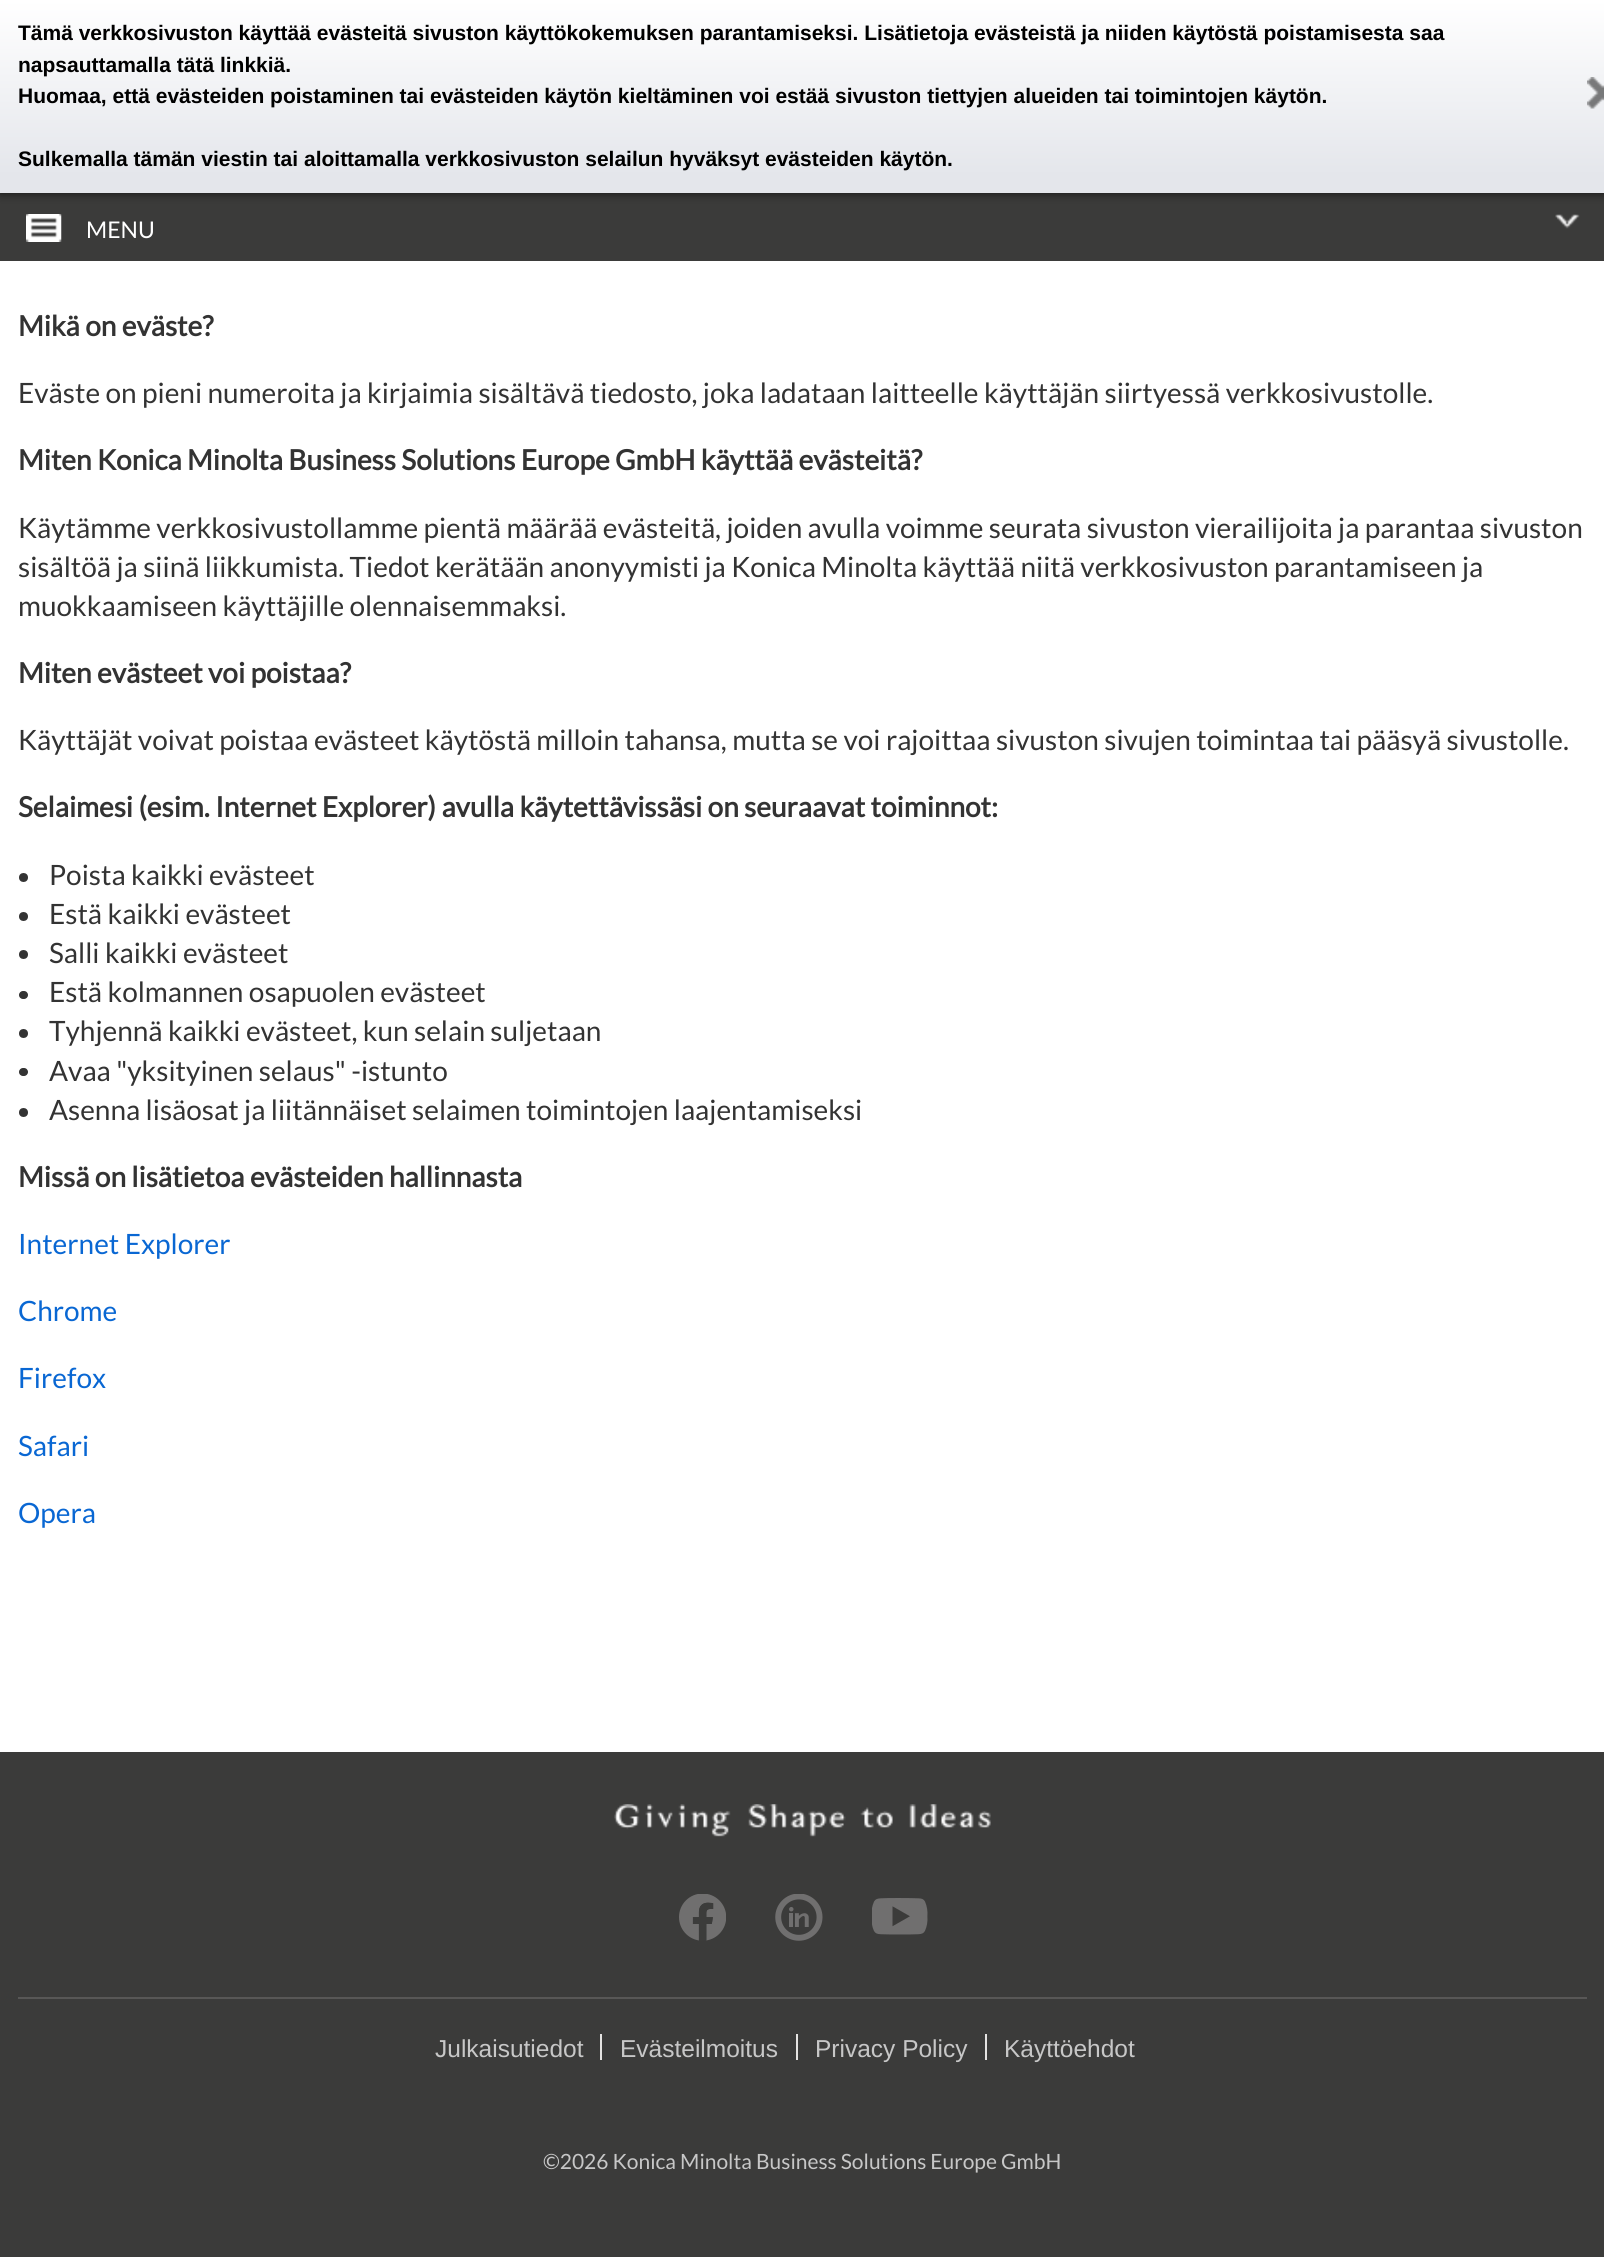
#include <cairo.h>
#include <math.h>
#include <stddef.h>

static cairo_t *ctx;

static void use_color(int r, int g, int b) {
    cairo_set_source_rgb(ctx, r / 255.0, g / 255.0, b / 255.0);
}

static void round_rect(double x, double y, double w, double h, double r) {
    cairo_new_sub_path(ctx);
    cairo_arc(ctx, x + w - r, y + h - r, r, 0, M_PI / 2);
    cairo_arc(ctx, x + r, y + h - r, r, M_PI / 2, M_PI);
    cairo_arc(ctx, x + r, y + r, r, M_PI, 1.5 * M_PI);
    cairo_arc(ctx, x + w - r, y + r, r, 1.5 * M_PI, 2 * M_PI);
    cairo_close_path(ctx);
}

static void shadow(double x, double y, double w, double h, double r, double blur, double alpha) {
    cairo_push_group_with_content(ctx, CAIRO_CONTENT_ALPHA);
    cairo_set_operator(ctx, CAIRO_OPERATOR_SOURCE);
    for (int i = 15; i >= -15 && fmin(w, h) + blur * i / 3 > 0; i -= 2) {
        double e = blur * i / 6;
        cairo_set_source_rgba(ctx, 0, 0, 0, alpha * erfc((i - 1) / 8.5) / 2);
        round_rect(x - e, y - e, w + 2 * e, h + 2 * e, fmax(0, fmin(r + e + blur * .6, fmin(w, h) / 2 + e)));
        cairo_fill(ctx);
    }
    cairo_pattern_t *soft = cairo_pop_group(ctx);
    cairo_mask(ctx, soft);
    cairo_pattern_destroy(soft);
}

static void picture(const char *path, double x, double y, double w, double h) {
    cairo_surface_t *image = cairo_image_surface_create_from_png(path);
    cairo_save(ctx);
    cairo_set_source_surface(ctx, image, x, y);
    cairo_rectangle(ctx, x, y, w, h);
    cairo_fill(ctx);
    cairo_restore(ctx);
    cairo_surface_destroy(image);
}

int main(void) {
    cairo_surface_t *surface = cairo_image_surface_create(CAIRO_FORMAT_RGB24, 1604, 2257);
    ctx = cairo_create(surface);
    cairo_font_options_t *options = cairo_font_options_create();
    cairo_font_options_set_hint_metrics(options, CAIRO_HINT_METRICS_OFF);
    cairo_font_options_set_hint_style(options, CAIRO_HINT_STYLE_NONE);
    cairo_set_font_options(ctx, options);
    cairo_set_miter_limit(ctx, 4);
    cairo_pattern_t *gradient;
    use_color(255, 255, 255);
    cairo_paint(ctx);
    use_color(59, 59, 58);
    cairo_rectangle(ctx, 0, 193, 1604, 68);
    cairo_fill(ctx);
    use_color(0, 0, 0);
    shadow(0, 0, 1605, 193, 0, 5, 0.7);
    gradient = cairo_pattern_create_linear(802, 0, 802, 193);
    cairo_pattern_add_color_stop_rgba(gradient, 0, 1, 1, 1, 1);
    cairo_pattern_add_color_stop_rgba(gradient, 0.91, 0.894, 0.902, 0.922, 1);
    cairo_set_source(ctx, gradient);
    cairo_pattern_destroy(gradient);
    cairo_rectangle(ctx, 0, 0, 1604, 193);
    cairo_fill(ctx);
    cairo_select_font_face(ctx, "Liberation Sans", CAIRO_FONT_SLANT_NORMAL, CAIRO_FONT_WEIGHT_BOLD);
    cairo_set_font_size(ctx, 21);
    use_color(0, 0, 0);
    cairo_move_to(ctx, 18, 40);
    cairo_show_text(ctx, "Tämä verkkosivuston käyttää evästeitä sivuston käyttökokemuksen parantamiseksi. Lisätietoja evästeistä ja niiden käytöstä poistamisesta saa");
    cairo_move_to(ctx, 18, 72);
    cairo_show_text(ctx, "napsauttamalla tätä linkkiä.");
    cairo_move_to(ctx, 18, 103);
    cairo_show_text(ctx, "Huomaa, että evästeiden poistaminen tai evästeiden käytön kieltäminen voi estää sivuston tiettyjen alueiden tai toimintojen käytön.");
    picture("img1.png", 1587, 77, 17, 32);
    cairo_move_to(ctx, 18, 166);
    cairo_show_text(ctx, "Sulkemalla tämän viestin tai aloittamalla verkkosivuston selailun hyväksyt evästeiden käytön.");
    picture("img2.png", 26, 214, 36, 28);
    cairo_select_font_face(ctx, "Lato", CAIRO_FONT_SLANT_NORMAL, CAIRO_FONT_WEIGHT_NORMAL);
    cairo_set_font_size(ctx, 23);
    use_color(255, 255, 255);
    cairo_move_to(ctx, 86, 238);
    cairo_show_text(ctx, "MENU");
    picture("img3.png", 1555, 214, 25, 15);
    cairo_select_font_face(ctx, "Lato", CAIRO_FONT_SLANT_NORMAL, CAIRO_FONT_WEIGHT_BOLD);
    cairo_set_font_size(ctx, 28);
    use_color(51, 51, 51);
    cairo_move_to(ctx, 18, 336);
    cairo_show_text(ctx, "Mikä on eväste?");
    cairo_select_font_face(ctx, "Lato", CAIRO_FONT_SLANT_NORMAL, CAIRO_FONT_WEIGHT_NORMAL);
    cairo_move_to(ctx, 18, 403);
    cairo_show_text(ctx, "Eväste on pieni numeroita ja kirjaimia sisältävä tiedosto, joka ladataan laitteelle käyttäjän siirtyessä verkkosivustolle.");
    cairo_select_font_face(ctx, "Lato", CAIRO_FONT_SLANT_NORMAL, CAIRO_FONT_WEIGHT_BOLD);
    cairo_move_to(ctx, 18, 470);
    cairo_show_text(ctx, "Miten Konica Minolta Business Solutions Europe GmbH käyttää evästeitä?");
    cairo_select_font_face(ctx, "Lato", CAIRO_FONT_SLANT_NORMAL, CAIRO_FONT_WEIGHT_NORMAL);
    cairo_move_to(ctx, 18, 538);
    cairo_show_text(ctx, "Käytämme verkkosivustollamme pientä määrää evästeitä, joiden avulla voimme seurata sivuston vierailijoita ja parantaa sivuston");
    cairo_move_to(ctx, 18, 577);
    cairo_show_text(ctx, "sisältöä ja siinä liikkumista. Tiedot kerätään anonyymisti ja Konica Minolta käyttää niitä verkkosivuston parantamiseen ja");
    cairo_move_to(ctx, 18, 616);
    cairo_show_text(ctx, "muokkaamiseen käyttäjille olennaisemmaksi.");
    cairo_select_font_face(ctx, "Lato", CAIRO_FONT_SLANT_NORMAL, CAIRO_FONT_WEIGHT_BOLD);
    cairo_move_to(ctx, 18, 683);
    cairo_show_text(ctx, "Miten evästeet voi poistaa?");
    cairo_select_font_face(ctx, "Lato", CAIRO_FONT_SLANT_NORMAL, CAIRO_FONT_WEIGHT_NORMAL);
    cairo_move_to(ctx, 18, 750);
    cairo_show_text(ctx, "Käyttäjät voivat poistaa evästeet käytöstä milloin tahansa, mutta se voi rajoittaa sivuston sivujen toimintaa tai pääsyä sivustolle.");
    cairo_select_font_face(ctx, "Lato", CAIRO_FONT_SLANT_NORMAL, CAIRO_FONT_WEIGHT_BOLD);
    cairo_move_to(ctx, 18, 817);
    cairo_show_text(ctx, "Selaimesi (esim. Internet Explorer) avulla käytettävissäsi on seuraavat toiminnot:");
    cairo_new_path(ctx);
    cairo_arc(ctx, 23.5, 877.5, 4.5, 0, 2 * M_PI);
    cairo_fill(ctx);
    cairo_select_font_face(ctx, "Lato", CAIRO_FONT_SLANT_NORMAL, CAIRO_FONT_WEIGHT_NORMAL);
    cairo_move_to(ctx, 49, 885);
    cairo_show_text(ctx, "Poista kaikki evästeet");
    cairo_new_path(ctx);
    cairo_arc(ctx, 23.5, 916.5, 4.5, 0, 2 * M_PI);
    cairo_fill(ctx);
    cairo_move_to(ctx, 49, 924);
    cairo_show_text(ctx, "Estä kaikki evästeet");
    cairo_new_path(ctx);
    cairo_arc(ctx, 23.5, 954.5, 4.5, 0, 2 * M_PI);
    cairo_fill(ctx);
    cairo_move_to(ctx, 49, 963);
    cairo_show_text(ctx, "Salli kaikki evästeet");
    round_rect(19, 991, 9, 8, 4);
    cairo_fill(ctx);
    cairo_move_to(ctx, 49, 1002);
    cairo_show_text(ctx, "Estä kolmannen osapuolen evästeet");
    cairo_new_path(ctx);
    cairo_arc(ctx, 23.5, 1033.5, 4.5, 0, 2 * M_PI);
    cairo_fill(ctx);
    cairo_move_to(ctx, 49, 1041);
    cairo_show_text(ctx, "Tyhjennä kaikki evästeet, kun selain suljetaan");
    round_rect(19, 1068, 9, 8, 4);
    cairo_fill(ctx);
    cairo_move_to(ctx, 49, 1081);
    cairo_show_text(ctx, "Avaa \"yksityinen selaus\" -istunto");
    cairo_new_path(ctx);
    cairo_arc(ctx, 23.5, 1112.5, 4.5, 0, 2 * M_PI);
    cairo_fill(ctx);
    cairo_move_to(ctx, 49, 1120);
    cairo_show_text(ctx, "Asenna lisäosat ja liitännäiset selaimen toimintojen laajentamiseksi");
    cairo_select_font_face(ctx, "Lato", CAIRO_FONT_SLANT_NORMAL, CAIRO_FONT_WEIGHT_BOLD);
    cairo_move_to(ctx, 18, 1187);
    cairo_show_text(ctx, "Missä on lisätietoa evästeiden hallinnasta");
    cairo_select_font_face(ctx, "Lato", CAIRO_FONT_SLANT_NORMAL, CAIRO_FONT_WEIGHT_NORMAL);
    use_color(9, 103, 211);
    cairo_move_to(ctx, 18, 1254);
    cairo_show_text(ctx, "Internet Explorer");
    cairo_move_to(ctx, 18, 1321);
    cairo_show_text(ctx, "Chrome");
    cairo_move_to(ctx, 18, 1388);
    cairo_show_text(ctx, "Firefox");
    cairo_move_to(ctx, 18, 1456);
    cairo_show_text(ctx, "Safari");
    cairo_move_to(ctx, 18, 1523);
    cairo_show_text(ctx, "Opera");
    use_color(59, 59, 58);
    cairo_rectangle(ctx, 0, 1752, 1604, 505);
    cairo_fill(ctx);
    picture("img4.png", 614, 1804, 377, 33);
    picture("img5.png", 679, 1894, 47, 47);
    picture("img6.png", 775, 1894, 48, 47);
    picture("img7.png", 872, 1898, 56, 37);
    use_color(88, 87, 86);
    cairo_rectangle(ctx, 18, 1997, 1569, 2);
    cairo_fill(ctx);
    use_color(228, 227, 226);
    cairo_rectangle(ctx, 600, 2034, 2, 26);
    cairo_fill(ctx);
    cairo_select_font_face(ctx, "Liberation Sans", CAIRO_FONT_SLANT_NORMAL, CAIRO_FONT_WEIGHT_NORMAL);
    cairo_set_font_size(ctx, 24.5);
    use_color(199, 199, 199);
    cairo_move_to(ctx, 435, 2057);
    cairo_show_text(ctx, "Julkaisutiedot");
    use_color(228, 227, 226);
    cairo_rectangle(ctx, 796, 2034, 2, 26);
    cairo_fill(ctx);
    use_color(199, 199, 199);
    cairo_move_to(ctx, 620, 2057);
    cairo_show_text(ctx, "Evästeilmoitus");
    use_color(228, 227, 226);
    cairo_rectangle(ctx, 985, 2034, 2, 26);
    cairo_fill(ctx);
    use_color(199, 199, 199);
    cairo_move_to(ctx, 815, 2057);
    cairo_show_text(ctx, "Privacy Policy");
    cairo_move_to(ctx, 1004, 2057);
    cairo_show_text(ctx, "Käyttöehdot");
    cairo_select_font_face(ctx, "Lato", CAIRO_FONT_SLANT_NORMAL, CAIRO_FONT_WEIGHT_NORMAL);
    cairo_set_font_size(ctx, 21);
    cairo_move_to(ctx, 543, 2169);
    cairo_show_text(ctx, "©2026 Konica Minolta Business Solutions Europe GmbH");
    cairo_surface_write_to_png(surface, "result.png");
    cairo_font_options_destroy(options);
    cairo_destroy(ctx);
    cairo_surface_destroy(surface);
    return 0;
}
